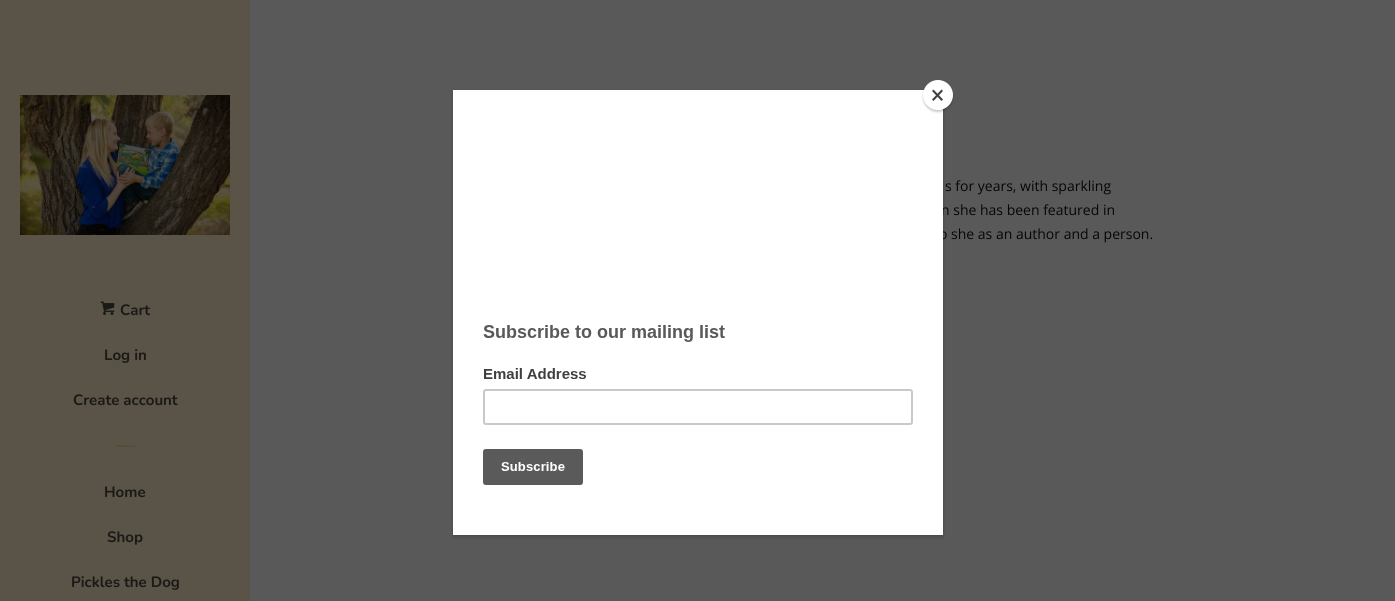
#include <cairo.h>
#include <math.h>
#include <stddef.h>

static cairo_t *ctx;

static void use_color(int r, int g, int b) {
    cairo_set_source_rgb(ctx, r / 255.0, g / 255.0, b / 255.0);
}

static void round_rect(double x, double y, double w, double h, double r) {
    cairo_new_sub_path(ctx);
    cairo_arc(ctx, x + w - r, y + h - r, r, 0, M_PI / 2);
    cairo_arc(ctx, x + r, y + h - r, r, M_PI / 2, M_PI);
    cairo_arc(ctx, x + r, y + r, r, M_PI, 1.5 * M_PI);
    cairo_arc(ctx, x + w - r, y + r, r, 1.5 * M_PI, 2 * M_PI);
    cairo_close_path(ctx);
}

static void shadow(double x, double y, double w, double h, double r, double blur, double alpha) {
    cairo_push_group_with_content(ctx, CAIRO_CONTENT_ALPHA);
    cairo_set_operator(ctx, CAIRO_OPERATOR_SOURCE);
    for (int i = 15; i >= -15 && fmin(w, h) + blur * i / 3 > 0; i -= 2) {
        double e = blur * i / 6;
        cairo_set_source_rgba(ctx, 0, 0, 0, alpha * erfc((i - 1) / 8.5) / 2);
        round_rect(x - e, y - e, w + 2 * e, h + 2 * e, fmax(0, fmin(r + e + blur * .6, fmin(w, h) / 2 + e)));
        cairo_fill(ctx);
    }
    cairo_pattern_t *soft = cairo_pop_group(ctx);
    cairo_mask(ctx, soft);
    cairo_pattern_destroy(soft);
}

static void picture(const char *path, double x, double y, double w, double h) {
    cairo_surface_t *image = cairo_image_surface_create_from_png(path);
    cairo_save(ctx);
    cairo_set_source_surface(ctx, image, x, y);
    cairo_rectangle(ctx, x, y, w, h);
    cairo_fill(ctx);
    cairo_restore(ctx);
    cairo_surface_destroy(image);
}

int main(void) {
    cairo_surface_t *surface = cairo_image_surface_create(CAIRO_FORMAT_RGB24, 1395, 601);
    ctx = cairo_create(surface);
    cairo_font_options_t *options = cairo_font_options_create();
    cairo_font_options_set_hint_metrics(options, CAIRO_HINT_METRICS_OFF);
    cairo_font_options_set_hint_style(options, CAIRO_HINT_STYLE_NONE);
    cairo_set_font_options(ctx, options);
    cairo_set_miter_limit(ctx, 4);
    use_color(89, 83, 72);
    cairo_paint(ctx);
    use_color(89, 89, 89);
    cairo_rectangle(ctx, 250, 0, 1145, 601);
    cairo_fill(ctx);
    use_color(0, 0, 0);
    shadow(453, 92, 490, 445, 0, 2, 0.2);
    cairo_select_font_face(ctx, "Open Sans", CAIRO_FONT_SLANT_NORMAL, CAIRO_FONT_WEIGHT_NORMAL);
    cairo_set_font_size(ctx, 14);
    use_color(6, 6, 6);
    cairo_move_to(ctx, 941, 215);
    cairo_show_text(ctx, "n she has been featured in");
    cairo_move_to(ctx, 939, 239);
    cairo_show_text(ctx, "o she as an author and a person.");
    picture("img1.png", 453, 90, 490, 445);
    use_color(0, 0, 0);
    shadow(923, 82, 30, 30, 15, 1, 0.2);
    use_color(255, 255, 255);
    cairo_arc(ctx, 938, 95, 15, 0, 2 * M_PI);
    cairo_fill(ctx);
    use_color(65, 65, 65);
    cairo_new_path(ctx);
    cairo_move_to(ctx, 941.5, 89.5);
    cairo_line_to(ctx, 943, 91);
    cairo_line_to(ctx, 933.5, 101);
    cairo_line_to(ctx, 932, 99.5);
    cairo_close_path(ctx);
    cairo_fill(ctx);
    cairo_new_path(ctx);
    cairo_move_to(ctx, 932, 91);
    cairo_line_to(ctx, 933.5, 89.5);
    cairo_line_to(ctx, 943, 99.5);
    cairo_line_to(ctx, 941.5, 101);
    cairo_close_path(ctx);
    cairo_fill(ctx);
    use_color(6, 6, 6);
    cairo_move_to(ctx, 945, 191);
    cairo_show_text(ctx, "s for years, with sparkling");
    picture("img2.png", 20, 95, 210, 140);
    picture("img3.png", 100, 301, 15, 14);
    cairo_select_font_face(ctx, "Nunito ExtraLight", CAIRO_FONT_SLANT_NORMAL, CAIRO_FONT_WEIGHT_NORMAL);
    cairo_set_font_size(ctx, 15);
    use_color(27, 25, 22);
    cairo_move_to(ctx, 120, 315);
    cairo_show_text(ctx, "Cart");
    cairo_move_to(ctx, 104, 360);
    cairo_show_text(ctx, "Log in");
    cairo_move_to(ctx, 73, 405);
    cairo_show_text(ctx, "Create account");
    use_color(88, 77, 55);
    cairo_rectangle(ctx, 115, 445, 20, 2);
    cairo_fill(ctx);
    use_color(27, 25, 22);
    cairo_move_to(ctx, 104, 497);
    cairo_show_text(ctx, "Home");
    cairo_move_to(ctx, 107, 542);
    cairo_show_text(ctx, "Shop");
    cairo_move_to(ctx, 71, 587);
    cairo_show_text(ctx, "Pickles the Dog");
    cairo_surface_write_to_png(surface, "result.png");
    cairo_font_options_destroy(options);
    cairo_destroy(ctx);
    cairo_surface_destroy(surface);
    return 0;
}
